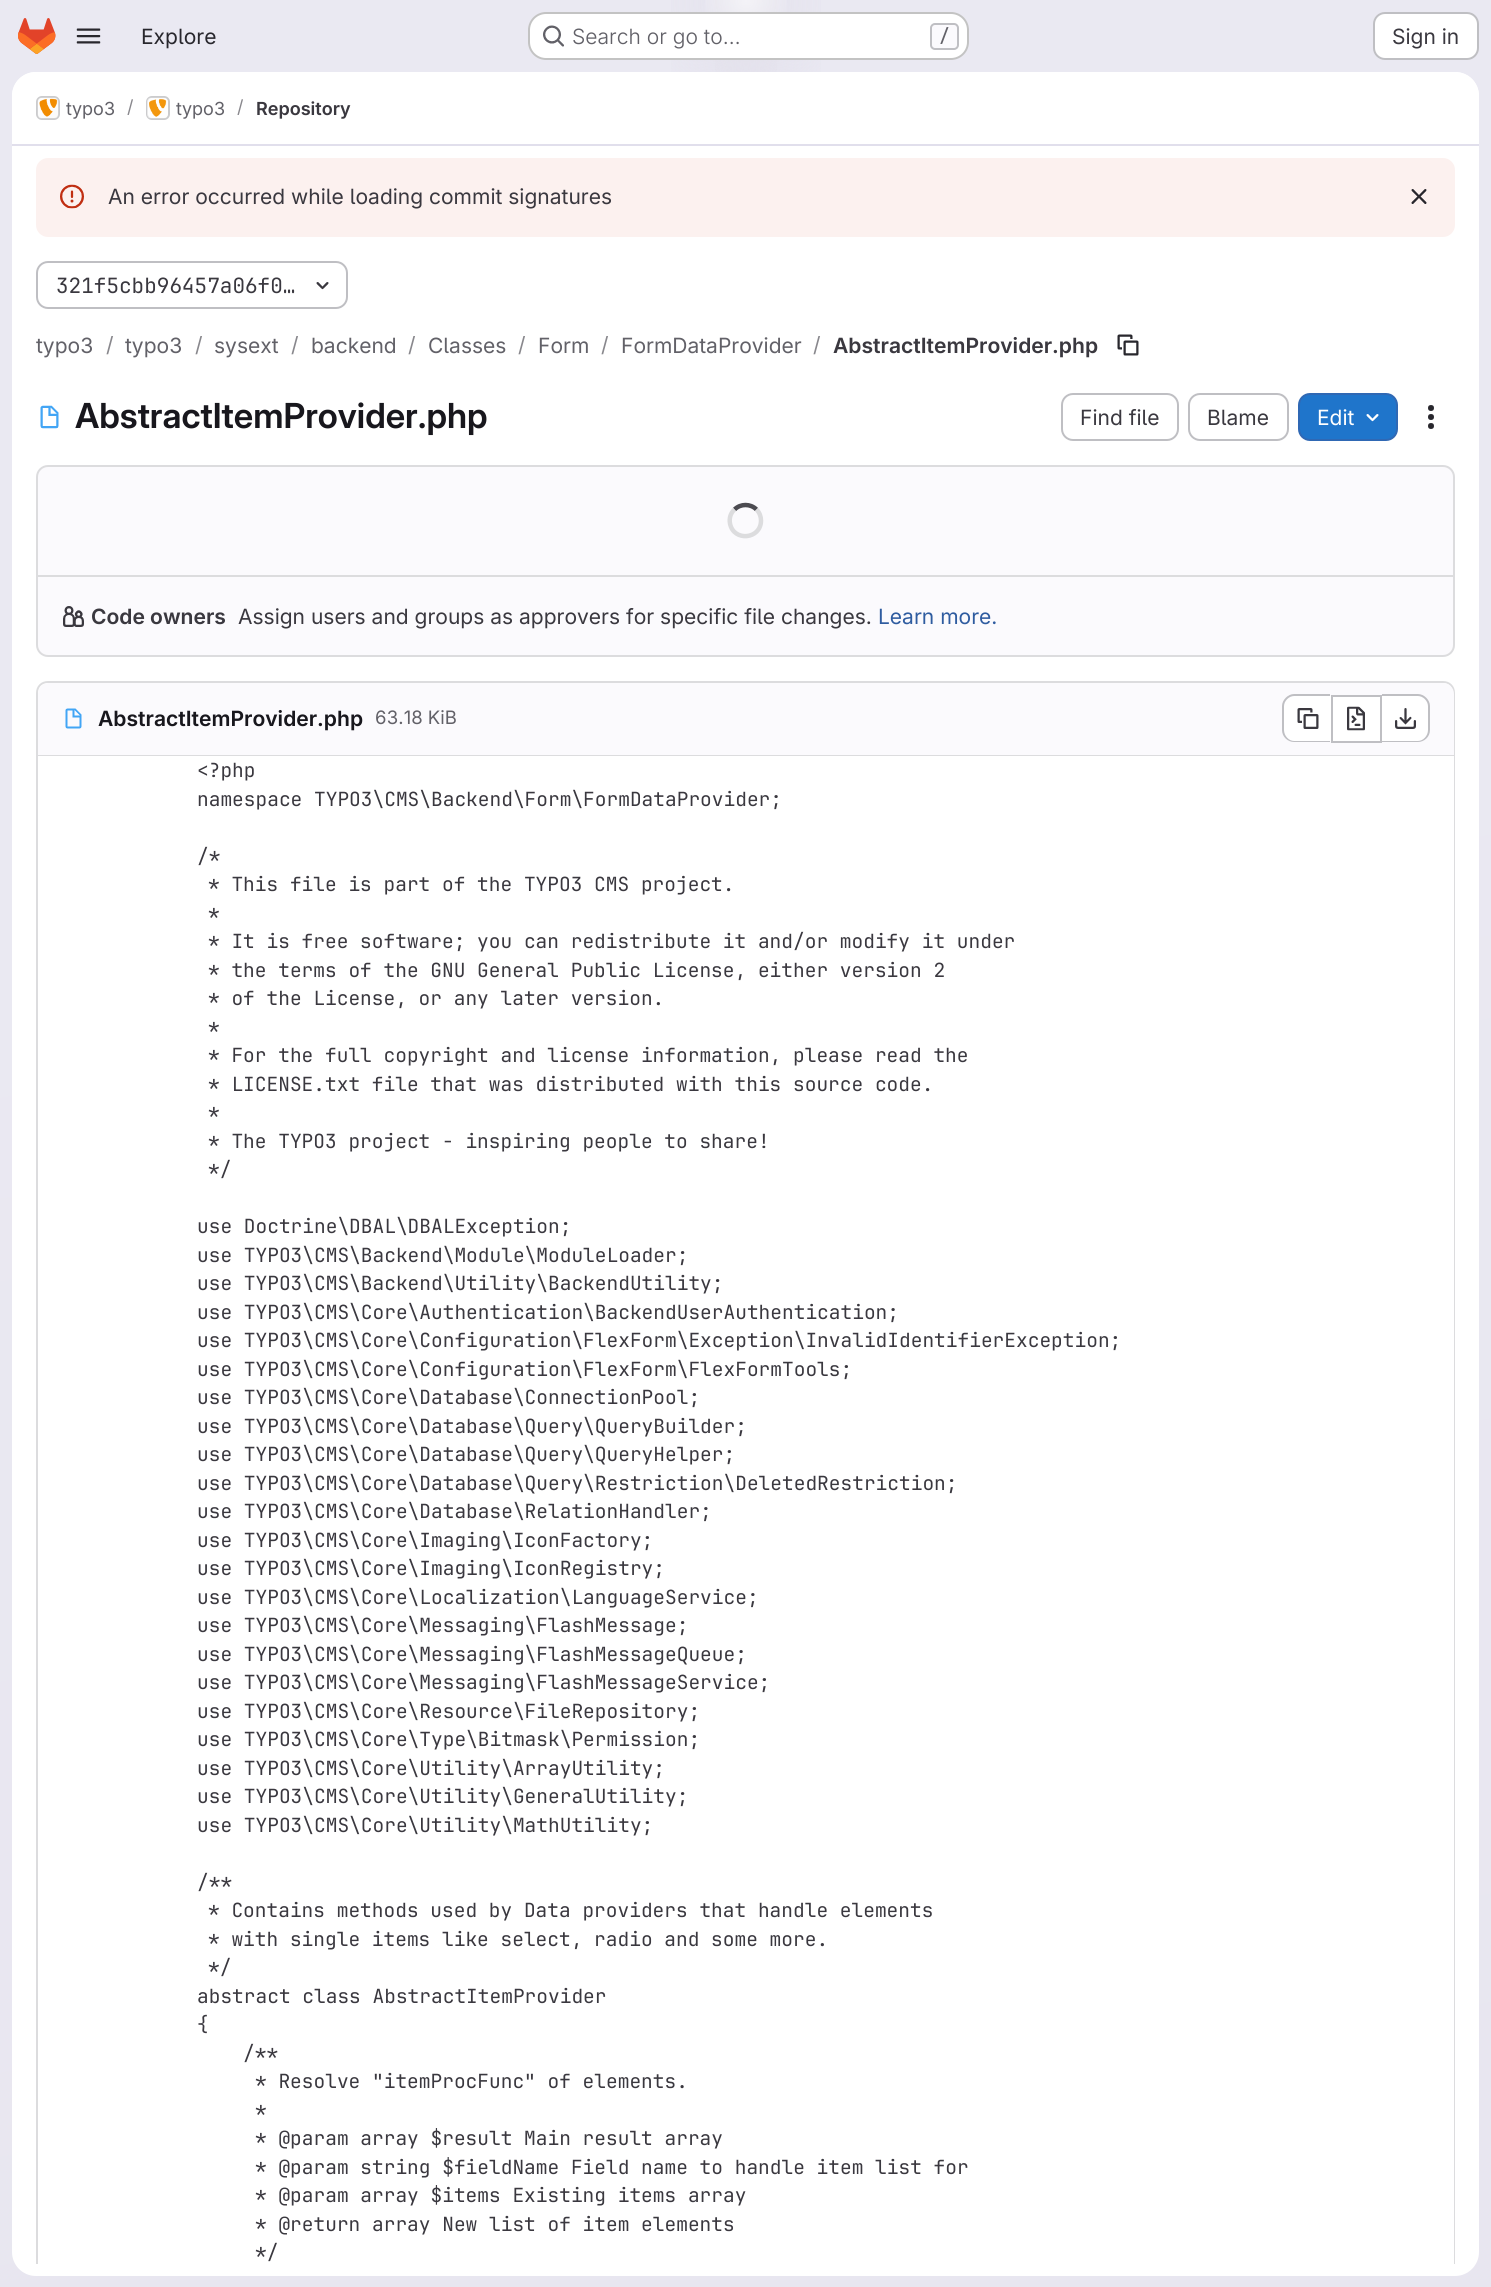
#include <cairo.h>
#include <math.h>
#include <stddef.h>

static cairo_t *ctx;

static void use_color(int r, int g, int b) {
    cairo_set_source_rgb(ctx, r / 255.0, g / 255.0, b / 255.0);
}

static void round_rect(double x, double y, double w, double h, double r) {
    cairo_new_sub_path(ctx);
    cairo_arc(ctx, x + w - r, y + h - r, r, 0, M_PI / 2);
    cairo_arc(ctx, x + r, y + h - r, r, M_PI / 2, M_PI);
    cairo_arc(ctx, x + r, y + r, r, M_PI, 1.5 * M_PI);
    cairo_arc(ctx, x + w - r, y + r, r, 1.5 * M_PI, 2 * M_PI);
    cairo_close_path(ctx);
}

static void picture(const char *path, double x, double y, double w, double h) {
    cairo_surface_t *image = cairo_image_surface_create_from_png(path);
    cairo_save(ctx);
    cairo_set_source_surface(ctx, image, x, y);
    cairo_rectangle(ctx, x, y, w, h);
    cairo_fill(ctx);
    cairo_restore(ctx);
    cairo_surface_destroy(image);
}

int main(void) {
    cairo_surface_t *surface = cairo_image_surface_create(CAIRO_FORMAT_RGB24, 1491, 2287);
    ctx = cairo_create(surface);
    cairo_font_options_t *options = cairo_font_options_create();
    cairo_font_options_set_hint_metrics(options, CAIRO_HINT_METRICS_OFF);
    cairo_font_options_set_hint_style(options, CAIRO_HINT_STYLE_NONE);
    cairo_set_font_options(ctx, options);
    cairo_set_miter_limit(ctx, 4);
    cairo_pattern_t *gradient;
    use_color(255, 255, 255);
    cairo_paint(ctx);
    gradient = cairo_pattern_create_linear(964, 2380, 527, -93);
    cairo_pattern_add_color_stop_rgba(gradient, 0, 0.91, 0.902, 0.941, 1);
    cairo_pattern_add_color_stop_rgba(gradient, 0.7, 0.918, 0.914, 0.949, 1);
    cairo_set_source(ctx, gradient);
    cairo_pattern_destroy(gradient);
    cairo_rectangle(ctx, 0, 0, 1491, 2287);
    cairo_fill(ctx);
    gradient = cairo_pattern_create_radial(0, 0, 0, 0, 0, 1);
    cairo_pattern_set_matrix(gradient, &(cairo_matrix_t){1.0 / 746, 0, 0, 1.0 / 2288, -1.0 * 746 / 746, -1.0 * 0 / 2288});
    cairo_pattern_add_color_stop_rgba(gradient, 0, 0.894, 0.886, 0.929, 1);
    cairo_pattern_add_color_stop_rgba(gradient, 0.14, 0.894, 0.886, 0.929, 0);
    cairo_set_source(ctx, gradient);
    cairo_pattern_destroy(gradient);
    cairo_rectangle(ctx, 671, 0, 150, 72);
    cairo_fill(ctx);
    gradient = cairo_pattern_create_radial(0, 0, 0, 0, 0, 1);
    cairo_pattern_set_matrix(gradient, &(cairo_matrix_t){1.0 / 746, 0, 0, 1.0 / 2288, -1.0 * 746 / 746, -1.0 * 0 / 2288});
    cairo_pattern_add_color_stop_rgba(gradient, 0, 0.894, 0.886, 0.925, 1);
    cairo_pattern_add_color_stop_rgba(gradient, 0.1, 0.894, 0.886, 0.925, 0);
    cairo_set_source(ctx, gradient);
    cairo_pattern_destroy(gradient);
    cairo_rectangle(ctx, 715, 0, 62, 72);
    cairo_fill(ctx);
    gradient = cairo_pattern_create_radial(746, 0, 0, 746, 0, 2406);
    cairo_pattern_add_color_stop_rgba(gradient, 0, 1, 1, 1, 0.6);
    cairo_pattern_add_color_stop_rgba(gradient, 0.02, 1, 1, 1, 0);
    cairo_set_source(ctx, gradient);
    cairo_pattern_destroy(gradient);
    cairo_rectangle(ctx, 705, 0, 82, 12);
    cairo_fill(ctx);
    picture("img1.png", 18, 18, 38, 36);
    picture("img2.png", 76, 28, 25, 16);
    cairo_select_font_face(ctx, "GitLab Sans", CAIRO_FONT_SLANT_NORMAL, CAIRO_FONT_WEIGHT_NORMAL);
    cairo_set_font_size(ctx, 21);
    use_color(40, 39, 45);
    cairo_move_to(ctx, 141, 44);
    cairo_show_text(ctx, "Explore");
    use_color(255, 255, 255);
    round_rect(528, 12, 441, 48, 18);
    cairo_fill(ctx);
    round_rect(529, 13, 439, 46, 17);
    cairo_set_source_rgba(ctx, 0.02, 0.02, 0.024, 0.24);
    cairo_stroke(ctx);
    picture("img3.png", 543, 25, 21, 22);
    cairo_select_font_face(ctx, "GitLab Sans Light", CAIRO_FONT_SLANT_NORMAL, CAIRO_FONT_WEIGHT_NORMAL);
    use_color(98, 97, 104);
    cairo_move_to(ctx, 572, 44);
    cairo_show_text(ctx, "Search or go to…");
    use_color(251, 250, 253);
    round_rect(931, 24, 27, 25, 4);
    cairo_fill_preserve(ctx);
    use_color(191, 191, 195);
    cairo_stroke(ctx);
    cairo_select_font_face(ctx, "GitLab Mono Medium", CAIRO_FONT_SLANT_NORMAL, CAIRO_FONT_WEIGHT_NORMAL);
    cairo_set_font_size(ctx, 18);
    use_color(98, 97, 104);
    cairo_move_to(ctx, 939, 42);
    cairo_show_text(ctx, "/");
    use_color(255, 255, 255);
    round_rect(1374, 13, 104, 46, 11);
    cairo_fill_preserve(ctx);
    use_color(191, 191, 195);
    cairo_stroke(ctx);
    cairo_select_font_face(ctx, "GitLab Sans", CAIRO_FONT_SLANT_NORMAL, CAIRO_FONT_WEIGHT_NORMAL);
    cairo_set_font_size(ctx, 21);
    use_color(58, 56, 63);
    cairo_move_to(ctx, 1392, 44);
    cairo_show_text(ctx, "Sign in");
    use_color(255, 255, 255);
    round_rect(12, 72, 1467, 2204, 24);
    cairo_fill(ctx);
    cairo_new_path(ctx);
    cairo_move_to(ctx, 36, 72);
    cairo_line_to(ctx, 1455, 72);
    cairo_curve_to(ctx, 1468.5, 72, 1479, 82.5, 1479, 96);
    cairo_line_to(ctx, 1479, 146);
    cairo_line_to(ctx, 12, 146);
    cairo_line_to(ctx, 12, 96);
    cairo_curve_to(ctx, 12, 82.5, 22.5, 72, 36, 72);
    cairo_close_path(ctx);
    cairo_fill(ctx);
    use_color(225, 223, 236);
    cairo_rectangle(ctx, 12, 144, 1467, 2);
    cairo_fill(ctx);
    round_rect(37, 97, 22, 22, 5);
    use_color(220, 220, 222);
    cairo_stroke(ctx);
    picture("img4.png", 37, 97, 22, 22);
    round_rect(37, 97, 22, 22, 5);
    cairo_set_source_rgba(ctx, 0.02, 0.02, 0.024, 0.08);
    cairo_stroke(ctx);
    cairo_set_font_size(ctx, 18);
    use_color(98, 97, 104);
    cairo_move_to(ctx, 66, 115);
    cairo_show_text(ctx, "typo3");
    use_color(137, 136, 141);
    cairo_move_to(ctx, 127, 113);
    cairo_show_text(ctx, "/");
    round_rect(147, 97, 22, 22, 5);
    use_color(220, 220, 222);
    cairo_stroke(ctx);
    picture("img5.png", 147, 97, 21, 22);
    round_rect(147, 97, 22, 22, 5);
    cairo_set_source_rgba(ctx, 0.02, 0.02, 0.024, 0.08);
    cairo_stroke(ctx);
    use_color(98, 97, 104);
    cairo_move_to(ctx, 176, 115);
    cairo_show_text(ctx, "typo3");
    use_color(137, 136, 141);
    cairo_move_to(ctx, 237, 113);
    cairo_show_text(ctx, "/");
    cairo_select_font_face(ctx, "GitLab Sans SemiBold", CAIRO_FONT_SLANT_NORMAL, CAIRO_FONT_WEIGHT_NORMAL);
    use_color(58, 56, 63);
    cairo_move_to(ctx, 256, 115);
    cairo_show_text(ctx, "Repository");
    use_color(252, 241, 239);
    round_rect(36, 158, 1419, 79, 12);
    cairo_fill(ctx);
    picture("img6.png", 60, 184, 24, 25);
    cairo_select_font_face(ctx, "GitLab Sans", CAIRO_FONT_SLANT_NORMAL, CAIRO_FONT_WEIGHT_NORMAL);
    cairo_set_font_size(ctx, 21);
    use_color(58, 56, 63);
    cairo_move_to(ctx, 108, 204);
    cairo_show_text(ctx, "An error occurred while loading commit signatures");
    picture("img7.png", 1411, 189, 16, 15);
    round_rect(37, 262, 310, 46, 11);
    use_color(191, 191, 195);
    cairo_stroke(ctx);
    cairo_select_font_face(ctx, "GitLab Mono", CAIRO_FONT_SLANT_NORMAL, CAIRO_FONT_WEIGHT_NORMAL);
    use_color(58, 56, 63);
    cairo_move_to(ctx, 56, 293);
    cairo_show_text(ctx, "321f5cbb96457a06f0…");
    picture("img8.png", 316, 282, 13, 8);
    cairo_select_font_face(ctx, "GitLab Sans", CAIRO_FONT_SLANT_NORMAL, CAIRO_FONT_WEIGHT_NORMAL);
    use_color(98, 97, 104);
    cairo_move_to(ctx, 36, 353);
    cairo_show_text(ctx, "typo3");
    use_color(137, 136, 141);
    cairo_move_to(ctx, 106, 352);
    cairo_show_text(ctx, "/");
    use_color(98, 97, 104);
    cairo_move_to(ctx, 125, 353);
    cairo_show_text(ctx, "typo3");
    use_color(137, 136, 141);
    cairo_move_to(ctx, 195, 352);
    cairo_show_text(ctx, "/");
    use_color(98, 97, 104);
    cairo_move_to(ctx, 214, 353);
    cairo_show_text(ctx, "sysext");
    use_color(137, 136, 141);
    cairo_move_to(ctx, 291, 352);
    cairo_show_text(ctx, "/");
    use_color(98, 97, 104);
    cairo_move_to(ctx, 311, 353);
    cairo_show_text(ctx, "backend");
    use_color(137, 136, 141);
    cairo_move_to(ctx, 408, 352);
    cairo_show_text(ctx, "/");
    use_color(98, 97, 104);
    cairo_move_to(ctx, 428, 353);
    cairo_show_text(ctx, "Classes");
    use_color(137, 136, 141);
    cairo_move_to(ctx, 518, 352);
    cairo_show_text(ctx, "/");
    use_color(98, 97, 104);
    cairo_move_to(ctx, 538, 353);
    cairo_show_text(ctx, "Form");
    use_color(137, 136, 141);
    cairo_move_to(ctx, 601, 352);
    cairo_show_text(ctx, "/");
    use_color(98, 97, 104);
    cairo_move_to(ctx, 621, 353);
    cairo_show_text(ctx, "FormDataProvider");
    use_color(137, 136, 141);
    cairo_move_to(ctx, 813, 352);
    cairo_show_text(ctx, "/");
    cairo_select_font_face(ctx, "GitLab Sans SemiBold", CAIRO_FONT_SLANT_NORMAL, CAIRO_FONT_WEIGHT_NORMAL);
    use_color(58, 56, 63);
    cairo_move_to(ctx, 833, 353);
    cairo_show_text(ctx, "AbstractItemProvider.php");
    picture("img9.png", 1117, 334, 22, 22);
    picture("img10.png", 40, 405, 19, 24);
    cairo_select_font_face(ctx, "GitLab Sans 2 SemiBold", CAIRO_FONT_SLANT_NORMAL, CAIRO_FONT_WEIGHT_NORMAL);
    cairo_set_font_size(ctx, 34.5);
    use_color(24, 23, 29);
    cairo_move_to(ctx, 75, 428);
    cairo_show_text(ctx, "AbstractItemProvider.php");
    round_rect(1062, 394, 116, 46, 11);
    use_color(191, 191, 195);
    cairo_stroke(ctx);
    cairo_select_font_face(ctx, "GitLab Sans", CAIRO_FONT_SLANT_NORMAL, CAIRO_FONT_WEIGHT_NORMAL);
    cairo_set_font_size(ctx, 21);
    use_color(58, 56, 63);
    cairo_move_to(ctx, 1080, 425);
    cairo_show_text(ctx, "Find file");
    round_rect(1189, 394, 99, 46, 11);
    use_color(191, 191, 195);
    cairo_stroke(ctx);
    use_color(58, 56, 63);
    cairo_move_to(ctx, 1207, 425);
    cairo_show_text(ctx, "Blame");
    use_color(31, 117, 203);
    round_rect(1299, 394, 98, 46, 11);
    cairo_fill_preserve(ctx);
    use_color(47, 104, 180);
    cairo_stroke(ctx);
    use_color(255, 255, 255);
    cairo_move_to(ctx, 1317, 425);
    cairo_show_text(ctx, "Edit");
    picture("img11.png", 1366, 414, 13, 8);
    picture("img12.png", 1428, 405, 6, 24);
    use_color(251, 250, 253);
    round_rect(37, 466, 1417, 190, 11);
    cairo_fill_preserve(ctx);
    use_color(220, 220, 222);
    cairo_stroke(ctx);
    cairo_new_path(ctx);
    cairo_move_to(ctx, 734.5, 509.5);
    cairo_curve_to(ctx, 740.5, 503.5, 750.5, 503.5, 756.5, 509.5);
    use_color(76, 75, 81);
    cairo_set_line_width(ctx, 4.5);
    cairo_stroke(ctx);
    cairo_new_path(ctx);
    cairo_move_to(ctx, 756.5, 509.5);
    cairo_curve_to(ctx, 759.5, 512.5, 761, 516.5, 761, 520.5);
    cairo_curve_to(ctx, 761, 539.5, 733.5, 542, 730, 523.5);
    cairo_curve_to(ctx, 729, 518.5, 730.5, 513, 734.5, 509.5);
    use_color(220, 220, 222);
    cairo_stroke(ctx);
    cairo_rectangle(ctx, 38, 575, 1416, 2);
    cairo_fill(ctx);
    picture("img13.png", 63, 606, 21, 21);
    cairo_select_font_face(ctx, "GitLab Sans SemiBold", CAIRO_FONT_SLANT_NORMAL, CAIRO_FONT_WEIGHT_NORMAL);
    use_color(58, 56, 63);
    cairo_move_to(ctx, 91, 624);
    cairo_show_text(ctx, "Code owners");
    cairo_select_font_face(ctx, "GitLab Sans", CAIRO_FONT_SLANT_NORMAL, CAIRO_FONT_WEIGHT_NORMAL);
    cairo_move_to(ctx, 238, 624);
    cairo_show_text(ctx, "Assign users and groups as approvers for specific file changes.");
    use_color(47, 92, 160);
    cairo_move_to(ctx, 878, 624);
    cairo_show_text(ctx, "Learn more.");
    cairo_save(ctx);
    cairo_rectangle(ctx, 12, 146, 1467, 2118);
    cairo_clip(ctx);
    use_color(220, 220, 222);
    cairo_new_path(ctx);
    cairo_move_to(ctx, 48, 681);
    cairo_curve_to(ctx, 41, 681, 36, 686, 36, 693);
    cairo_line_to(ctx, 36, 2276);
    cairo_line_to(ctx, 38, 2276);
    cairo_line_to(ctx, 38, 693);
    cairo_curve_to(ctx, 38, 687, 42, 683, 48, 683);
    cairo_line_to(ctx, 1443, 683);
    cairo_curve_to(ctx, 1449, 683, 1453, 687, 1453, 693);
    cairo_line_to(ctx, 1453, 2276);
    cairo_line_to(ctx, 1455, 2276);
    cairo_line_to(ctx, 1455, 693);
    cairo_curve_to(ctx, 1455, 686, 1450, 681, 1443, 681);
    cairo_close_path(ctx);
    cairo_fill(ctx);
    cairo_restore(ctx);
    use_color(251, 250, 253);
    cairo_new_path(ctx);
    cairo_move_to(ctx, 49, 683);
    cairo_line_to(ctx, 1443, 683);
    cairo_curve_to(ctx, 1449, 683, 1454, 688, 1454, 694);
    cairo_line_to(ctx, 1454, 756);
    cairo_line_to(ctx, 38, 756);
    cairo_line_to(ctx, 38, 694);
    cairo_curve_to(ctx, 38, 688, 43, 683, 49, 683);
    cairo_close_path(ctx);
    cairo_fill(ctx);
    use_color(220, 220, 222);
    cairo_rectangle(ctx, 38, 755, 1416, 1);
    cairo_fill(ctx);
    picture("img14.png", 65, 708, 17, 21);
    cairo_select_font_face(ctx, "GitLab Sans SemiBold", CAIRO_FONT_SLANT_NORMAL, CAIRO_FONT_WEIGHT_NORMAL);
    use_color(24, 23, 29);
    cairo_move_to(ctx, 98, 726);
    cairo_show_text(ctx, "AbstractItemProvider.php");
    cairo_select_font_face(ctx, "GitLab Sans", CAIRO_FONT_SLANT_NORMAL, CAIRO_FONT_WEIGHT_NORMAL);
    cairo_set_font_size(ctx, 18.5);
    use_color(98, 97, 104);
    cairo_move_to(ctx, 375, 724);
    cairo_show_text(ctx, "63.18 KiB");
    use_color(255, 255, 255);
    cairo_new_path(ctx);
    cairo_move_to(ctx, 1295, 696);
    cairo_line_to(ctx, 1331, 696);
    cairo_line_to(ctx, 1331, 741);
    cairo_line_to(ctx, 1295, 741);
    cairo_curve_to(ctx, 1289, 741, 1284, 736, 1284, 730);
    cairo_line_to(ctx, 1284, 707);
    cairo_curve_to(ctx, 1284, 701, 1289, 696, 1295, 696);
    cairo_close_path(ctx);
    cairo_fill(ctx);
    use_color(191, 191, 195);
    cairo_set_fill_rule(ctx, CAIRO_FILL_RULE_EVEN_ODD);
    cairo_new_path(ctx);
    cairo_move_to(ctx, 1294, 694);
    cairo_line_to(ctx, 1330, 694);
    cairo_line_to(ctx, 1330, 742);
    cairo_line_to(ctx, 1294, 742);
    cairo_curve_to(ctx, 1288, 742, 1282, 737, 1282, 730);
    cairo_line_to(ctx, 1282, 706);
    cairo_curve_to(ctx, 1282, 700, 1288, 694, 1294, 694);
    cairo_close_path(ctx);
    cairo_move_to(ctx, 1294, 696);
    cairo_line_to(ctx, 1330, 696);
    cairo_line_to(ctx, 1330, 741);
    cairo_line_to(ctx, 1294, 741);
    cairo_curve_to(ctx, 1289, 741, 1284, 736, 1284, 730);
    cairo_line_to(ctx, 1284, 706);
    cairo_curve_to(ctx, 1284, 701, 1289, 696, 1294, 696);
    cairo_close_path(ctx);
    cairo_fill(ctx);
    picture("img15.png", 1297, 708, 22, 21);
    use_color(255, 255, 255);
    cairo_rectangle(ctx, 1333, 697, 47, 44);
    cairo_fill(ctx);
    use_color(191, 191, 195);
    cairo_rectangle(ctx, 1332, 695, 48, 2);
    cairo_fill(ctx);
    cairo_rectangle(ctx, 1332, 741, 48, 2);
    cairo_fill(ctx);
    cairo_rectangle(ctx, 1331, 695, 2, 48);
    cairo_fill(ctx);
    picture("img16.png", 1347, 706, 18, 25);
    use_color(255, 255, 255);
    cairo_new_path(ctx);
    cairo_move_to(ctx, 1382, 696);
    cairo_line_to(ctx, 1417, 696);
    cairo_curve_to(ctx, 1423, 696, 1428, 701, 1428, 707);
    cairo_line_to(ctx, 1428, 730);
    cairo_curve_to(ctx, 1428, 736, 1423, 741, 1417, 741);
    cairo_line_to(ctx, 1382, 741);
    cairo_close_path(ctx);
    cairo_fill(ctx);
    use_color(191, 191, 195);
    cairo_new_path(ctx);
    cairo_move_to(ctx, 1382, 694);
    cairo_line_to(ctx, 1418, 694);
    cairo_curve_to(ctx, 1424, 694, 1430, 700, 1430, 706);
    cairo_line_to(ctx, 1430, 730);
    cairo_curve_to(ctx, 1430, 737, 1424, 742, 1418, 742);
    cairo_line_to(ctx, 1382, 742);
    cairo_close_path(ctx);
    cairo_move_to(ctx, 1382, 696);
    cairo_line_to(ctx, 1418, 696);
    cairo_curve_to(ctx, 1423, 696, 1428, 701, 1428, 706);
    cairo_line_to(ctx, 1428, 730);
    cairo_curve_to(ctx, 1428, 736, 1423, 741, 1418, 741);
    cairo_line_to(ctx, 1382, 741);
    cairo_close_path(ctx);
    cairo_fill(ctx);
    cairo_rectangle(ctx, 1380, 695, 2, 48);
    cairo_fill(ctx);
    picture("img17.png", 1395, 708, 21, 21);
    use_color(255, 255, 255);
    cairo_rectangle(ctx, 1453, 756, 1, 1508);
    cairo_fill(ctx);
    cairo_select_font_face(ctx, "GitLab Mono", CAIRO_FONT_SLANT_NORMAL, CAIRO_FONT_WEIGHT_NORMAL);
    cairo_set_font_size(ctx, 19.5);
    use_color(58, 56, 63);
    cairo_move_to(ctx, 197, 777);
    cairo_show_text(ctx, "<?php");
    cairo_move_to(ctx, 197, 806);
    cairo_show_text(ctx, "namespace TYPO3\\CMS\\Backend\\Form\\FormDataProvider;");
    cairo_move_to(ctx, 197, 863);
    cairo_show_text(ctx, "/*");
    cairo_move_to(ctx, 208, 891);
    cairo_show_text(ctx, "* This file is part of the TYPO3 CMS project.");
    cairo_move_to(ctx, 208, 920);
    cairo_show_text(ctx, "*");
    cairo_move_to(ctx, 208, 948);
    cairo_show_text(ctx, "* It is free software; you can redistribute it and/or modify it under");
    cairo_move_to(ctx, 208, 977);
    cairo_show_text(ctx, "* the terms of the GNU General Public License, either version 2");
    cairo_move_to(ctx, 208, 1005);
    cairo_show_text(ctx, "* of the License, or any later version.");
    cairo_move_to(ctx, 208, 1034);
    cairo_show_text(ctx, "*");
    cairo_move_to(ctx, 208, 1062);
    cairo_show_text(ctx, "* For the full copyright and license information, please read the");
    cairo_move_to(ctx, 208, 1091);
    cairo_show_text(ctx, "* LICENSE.txt file that was distributed with this source code.");
    cairo_move_to(ctx, 208, 1119);
    cairo_show_text(ctx, "*");
    cairo_move_to(ctx, 208, 1148);
    cairo_show_text(ctx, "* The TYPO3 project - inspiring people to share!");
    cairo_move_to(ctx, 208, 1176);
    cairo_show_text(ctx, "*/");
    cairo_move_to(ctx, 197, 1233);
    cairo_show_text(ctx, "use Doctrine\\DBAL\\DBALException;");
    cairo_move_to(ctx, 197, 1262);
    cairo_show_text(ctx, "use TYPO3\\CMS\\Backend\\Module\\ModuleLoader;");
    cairo_move_to(ctx, 197, 1290);
    cairo_show_text(ctx, "use TYPO3\\CMS\\Backend\\Utility\\BackendUtility;");
    cairo_move_to(ctx, 197, 1319);
    cairo_show_text(ctx, "use TYPO3\\CMS\\Core\\Authentication\\BackendUserAuthentication;");
    cairo_move_to(ctx, 197, 1347);
    cairo_show_text(ctx, "use TYPO3\\CMS\\Core\\Configuration\\FlexForm\\Exception\\InvalidIdentifierException;");
    cairo_move_to(ctx, 197, 1376);
    cairo_show_text(ctx, "use TYPO3\\CMS\\Core\\Configuration\\FlexForm\\FlexFormTools;");
    cairo_move_to(ctx, 197, 1404);
    cairo_show_text(ctx, "use TYPO3\\CMS\\Core\\Database\\ConnectionPool;");
    cairo_move_to(ctx, 197, 1433);
    cairo_show_text(ctx, "use TYPO3\\CMS\\Core\\Database\\Query\\QueryBuilder;");
    cairo_move_to(ctx, 197, 1461);
    cairo_show_text(ctx, "use TYPO3\\CMS\\Core\\Database\\Query\\QueryHelper;");
    cairo_move_to(ctx, 197, 1490);
    cairo_show_text(ctx, "use TYPO3\\CMS\\Core\\Database\\Query\\Restriction\\DeletedRestriction;");
    cairo_move_to(ctx, 197, 1518);
    cairo_show_text(ctx, "use TYPO3\\CMS\\Core\\Database\\RelationHandler;");
    cairo_move_to(ctx, 197, 1547);
    cairo_show_text(ctx, "use TYPO3\\CMS\\Core\\Imaging\\IconFactory;");
    cairo_move_to(ctx, 197, 1575);
    cairo_show_text(ctx, "use TYPO3\\CMS\\Core\\Imaging\\IconRegistry;");
    cairo_move_to(ctx, 197, 1604);
    cairo_show_text(ctx, "use TYPO3\\CMS\\Core\\Localization\\LanguageService;");
    cairo_move_to(ctx, 197, 1632);
    cairo_show_text(ctx, "use TYPO3\\CMS\\Core\\Messaging\\FlashMessage;");
    cairo_move_to(ctx, 197, 1661);
    cairo_show_text(ctx, "use TYPO3\\CMS\\Core\\Messaging\\FlashMessageQueue;");
    cairo_move_to(ctx, 197, 1689);
    cairo_show_text(ctx, "use TYPO3\\CMS\\Core\\Messaging\\FlashMessageService;");
    cairo_move_to(ctx, 197, 1718);
    cairo_show_text(ctx, "use TYPO3\\CMS\\Core\\Resource\\FileRepository;");
    cairo_move_to(ctx, 197, 1746);
    cairo_show_text(ctx, "use TYPO3\\CMS\\Core\\Type\\Bitmask\\Permission;");
    cairo_move_to(ctx, 197, 1775);
    cairo_show_text(ctx, "use TYPO3\\CMS\\Core\\Utility\\ArrayUtility;");
    cairo_move_to(ctx, 197, 1803);
    cairo_show_text(ctx, "use TYPO3\\CMS\\Core\\Utility\\GeneralUtility;");
    cairo_move_to(ctx, 197, 1832);
    cairo_show_text(ctx, "use TYPO3\\CMS\\Core\\Utility\\MathUtility;");
    cairo_move_to(ctx, 197, 1889);
    cairo_show_text(ctx, "/**");
    cairo_move_to(ctx, 208, 1917);
    cairo_show_text(ctx, "* Contains methods used by Data providers that handle elements");
    cairo_move_to(ctx, 208, 1946);
    cairo_show_text(ctx, "* with single items like select, radio and some more.");
    cairo_move_to(ctx, 208, 1974);
    cairo_show_text(ctx, "*/");
    cairo_move_to(ctx, 197, 2003);
    cairo_show_text(ctx, "abstract class AbstractItemProvider");
    cairo_move_to(ctx, 197, 2031);
    cairo_show_text(ctx, "{");
    cairo_move_to(ctx, 243, 2060);
    cairo_show_text(ctx, "/**");
    cairo_move_to(ctx, 255, 2088);
    cairo_show_text(ctx, "* Resolve \"itemProcFunc\" of elements.");
    cairo_move_to(ctx, 255, 2117);
    cairo_show_text(ctx, "*");
    cairo_move_to(ctx, 255, 2145);
    cairo_show_text(ctx, "* @param array $result Main result array");
    cairo_move_to(ctx, 255, 2174);
    cairo_show_text(ctx, "* @param string $fieldName Field name to handle item list for");
    cairo_move_to(ctx, 255, 2202);
    cairo_show_text(ctx, "* @param array $items Existing items array");
    cairo_move_to(ctx, 255, 2231);
    cairo_show_text(ctx, "* @return array New list of item elements");
    cairo_move_to(ctx, 255, 2259);
    cairo_show_text(ctx, "*/");
    cairo_surface_write_to_png(surface, "result.png");
    cairo_font_options_destroy(options);
    cairo_destroy(ctx);
    cairo_surface_destroy(surface);
    return 0;
}
